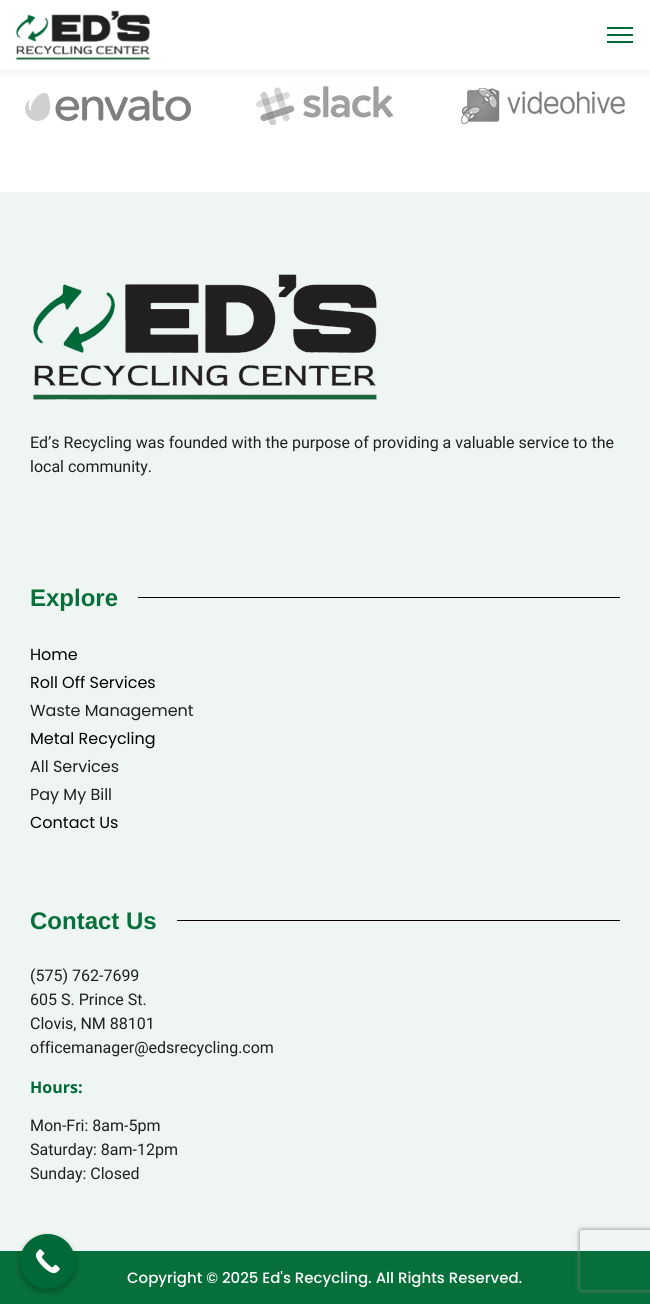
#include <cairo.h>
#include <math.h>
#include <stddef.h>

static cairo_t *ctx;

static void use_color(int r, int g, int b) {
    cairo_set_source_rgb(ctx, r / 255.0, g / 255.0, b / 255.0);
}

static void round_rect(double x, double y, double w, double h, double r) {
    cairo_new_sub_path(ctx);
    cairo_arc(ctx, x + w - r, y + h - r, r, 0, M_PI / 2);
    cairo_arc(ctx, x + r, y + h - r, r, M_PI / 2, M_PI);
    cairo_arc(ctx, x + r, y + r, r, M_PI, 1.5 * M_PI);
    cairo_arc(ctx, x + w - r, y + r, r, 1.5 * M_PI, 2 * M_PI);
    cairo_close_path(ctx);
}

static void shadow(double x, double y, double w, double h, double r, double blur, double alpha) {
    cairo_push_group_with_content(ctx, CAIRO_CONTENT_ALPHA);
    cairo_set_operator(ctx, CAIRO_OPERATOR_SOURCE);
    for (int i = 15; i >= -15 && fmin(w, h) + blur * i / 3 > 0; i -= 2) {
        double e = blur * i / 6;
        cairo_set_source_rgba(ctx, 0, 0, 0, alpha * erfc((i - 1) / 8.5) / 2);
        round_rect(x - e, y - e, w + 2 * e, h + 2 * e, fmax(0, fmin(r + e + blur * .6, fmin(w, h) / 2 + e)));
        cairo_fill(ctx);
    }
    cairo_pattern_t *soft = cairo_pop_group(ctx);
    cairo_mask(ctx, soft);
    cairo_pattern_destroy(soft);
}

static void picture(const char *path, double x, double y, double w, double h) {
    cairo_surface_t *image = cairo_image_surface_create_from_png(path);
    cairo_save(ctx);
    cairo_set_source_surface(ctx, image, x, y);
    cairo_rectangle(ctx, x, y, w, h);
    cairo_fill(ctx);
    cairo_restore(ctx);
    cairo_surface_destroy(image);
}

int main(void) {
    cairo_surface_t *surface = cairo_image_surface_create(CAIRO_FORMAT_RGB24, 650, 1304);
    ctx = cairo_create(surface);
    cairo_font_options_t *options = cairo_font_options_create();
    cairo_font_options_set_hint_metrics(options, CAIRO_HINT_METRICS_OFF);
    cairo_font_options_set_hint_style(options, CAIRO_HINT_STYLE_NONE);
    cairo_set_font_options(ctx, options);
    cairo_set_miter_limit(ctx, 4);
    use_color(255, 255, 255);
    cairo_paint(ctx);
    use_color(0, 0, 0);
    shadow(0, 3, 650, 70, 0, 3, 0.05);
    use_color(255, 255, 255);
    cairo_rectangle(ctx, 0, 0, 650, 70);
    cairo_fill(ctx);
    picture("img1.png", 15, 10, 136, 50);
    use_color(0, 105, 56);
    cairo_rectangle(ctx, 607, 27, 26, 2);
    cairo_fill(ctx);
    cairo_rectangle(ctx, 607, 34, 26, 2);
    cairo_fill(ctx);
    cairo_rectangle(ctx, 607, 41, 26, 2);
    cairo_fill(ctx);
    picture("img2.png", 25, 90, 166, 31);
    picture("img3.png", 256, 86, 137, 39);
    picture("img4.png", 461, 88, 164, 36);
    use_color(238, 245, 242);
    cairo_rectangle(ctx, 0, 192, 650, 1059);
    cairo_fill(ctx);
    picture("img5.png", 33, 274, 344, 126);
    cairo_select_font_face(ctx, "Roboto", CAIRO_FONT_SLANT_NORMAL, CAIRO_FONT_WEIGHT_NORMAL);
    cairo_set_font_size(ctx, 16);
    use_color(33, 31, 32);
    cairo_move_to(ctx, 30, 448);
    cairo_show_text(ctx, "Ed’s Recycling was founded with the purpose of providing a valuable service to the");
    cairo_move_to(ctx, 30, 472);
    cairo_show_text(ctx, "local community.");
    cairo_select_font_face(ctx, "Liberation Sans", CAIRO_FONT_SLANT_NORMAL, CAIRO_FONT_WEIGHT_BOLD);
    cairo_set_font_size(ctx, 24);
    use_color(7, 111, 58);
    cairo_move_to(ctx, 30, 606);
    cairo_show_text(ctx, "Explore");
    use_color(0, 0, 0);
    cairo_rectangle(ctx, 138, 597, 482, 1);
    cairo_fill(ctx);
    cairo_select_font_face(ctx, "Poppins", CAIRO_FONT_SLANT_NORMAL, CAIRO_FONT_WEIGHT_NORMAL);
    cairo_set_font_size(ctx, 16);
    cairo_move_to(ctx, 30, 660);
    cairo_show_text(ctx, "Home");
    cairo_move_to(ctx, 30, 688);
    cairo_show_text(ctx, "Roll Off Services");
    use_color(33, 31, 32);
    cairo_move_to(ctx, 30, 716);
    cairo_show_text(ctx, "Waste Management");
    use_color(0, 0, 0);
    cairo_move_to(ctx, 30, 744);
    cairo_show_text(ctx, "Metal Recycling");
    use_color(33, 31, 32);
    cairo_move_to(ctx, 30, 772);
    cairo_show_text(ctx, "All Services");
    cairo_move_to(ctx, 30, 800);
    cairo_show_text(ctx, "Pay My Bill");
    use_color(0, 0, 0);
    cairo_move_to(ctx, 30, 828);
    cairo_show_text(ctx, "Contact Us");
    cairo_select_font_face(ctx, "Liberation Sans", CAIRO_FONT_SLANT_NORMAL, CAIRO_FONT_WEIGHT_BOLD);
    cairo_set_font_size(ctx, 24);
    use_color(7, 111, 58);
    cairo_move_to(ctx, 30, 929);
    cairo_show_text(ctx, "Contact Us");
    use_color(0, 0, 0);
    cairo_rectangle(ctx, 177, 920, 443, 1);
    cairo_fill(ctx);
    cairo_select_font_face(ctx, "Roboto", CAIRO_FONT_SLANT_NORMAL, CAIRO_FONT_WEIGHT_NORMAL);
    cairo_set_font_size(ctx, 16);
    use_color(33, 31, 32);
    cairo_move_to(ctx, 30, 981);
    cairo_show_text(ctx, "(575) 762-7699");
    cairo_move_to(ctx, 30, 1005);
    cairo_show_text(ctx, "605 S. Prince St.");
    cairo_move_to(ctx, 30, 1029);
    cairo_show_text(ctx, "Clovis, NM 88101");
    cairo_move_to(ctx, 30, 1053);
    cairo_show_text(ctx, "officemanager@edsrecycling.com");
    cairo_select_font_face(ctx, "Open Sans", CAIRO_FONT_SLANT_NORMAL, CAIRO_FONT_WEIGHT_BOLD);
    use_color(0, 105, 56);
    cairo_move_to(ctx, 30, 1093);
    cairo_show_text(ctx, "Hours:");
    cairo_select_font_face(ctx, "Roboto", CAIRO_FONT_SLANT_NORMAL, CAIRO_FONT_WEIGHT_NORMAL);
    use_color(33, 31, 32);
    cairo_move_to(ctx, 30, 1131);
    cairo_show_text(ctx, "Mon-Fri: 8am-5pm");
    cairo_move_to(ctx, 30, 1155);
    cairo_show_text(ctx, "Saturday: 8am-12pm");
    cairo_move_to(ctx, 30, 1179);
    cairo_show_text(ctx, "Sunday: Closed");
    use_color(7, 111, 58);
    cairo_rectangle(ctx, 0, 1251, 650, 53);
    cairo_fill(ctx);
    cairo_select_font_face(ctx, "Poppins Medium", CAIRO_FONT_SLANT_NORMAL, CAIRO_FONT_WEIGHT_NORMAL);
    cairo_set_font_size(ctx, 15);
    use_color(255, 255, 255);
    cairo_move_to(ctx, 127, 1283);
    cairo_show_text(ctx, "Copyright © 2025 Ed's Recycling. All Rights Reserved.");
    use_color(0, 0, 0);
    shadow(20, 1237, 55, 55, 27.5, 3, 0.3);
    use_color(0, 105, 56);
    cairo_arc(ctx, 47.5, 1261.5, 27.5, 0, 2 * M_PI);
    cairo_fill(ctx);
    picture("img6.png", 35, 1249, 25, 25);
    cairo_save(ctx);
    cairo_set_fill_rule(ctx, CAIRO_FILL_RULE_EVEN_ODD);
    cairo_new_path(ctx);
    cairo_move_to(ctx, 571, 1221);
    cairo_line_to(ctx, 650, 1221);
    cairo_line_to(ctx, 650, 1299);
    cairo_line_to(ctx, 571, 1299);
    cairo_close_path(ctx);
    cairo_move_to(ctx, 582, 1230);
    cairo_line_to(ctx, 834, 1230);
    cairo_curve_to(ctx, 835, 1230, 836, 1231, 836, 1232);
    cairo_line_to(ctx, 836, 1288);
    cairo_curve_to(ctx, 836, 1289, 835, 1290, 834, 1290);
    cairo_line_to(ctx, 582, 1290);
    cairo_curve_to(ctx, 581, 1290, 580, 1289, 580, 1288);
    cairo_line_to(ctx, 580, 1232);
    cairo_curve_to(ctx, 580, 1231, 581, 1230, 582, 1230);
    cairo_close_path(ctx);
    cairo_clip(ctx);
    use_color(128, 128, 128);
    shadow(580, 1230, 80, 60, 2, 2.5, 1);
    cairo_restore(ctx);
    cairo_surface_write_to_png(surface, "result.png");
    cairo_font_options_destroy(options);
    cairo_destroy(ctx);
    cairo_surface_destroy(surface);
    return 0;
}
